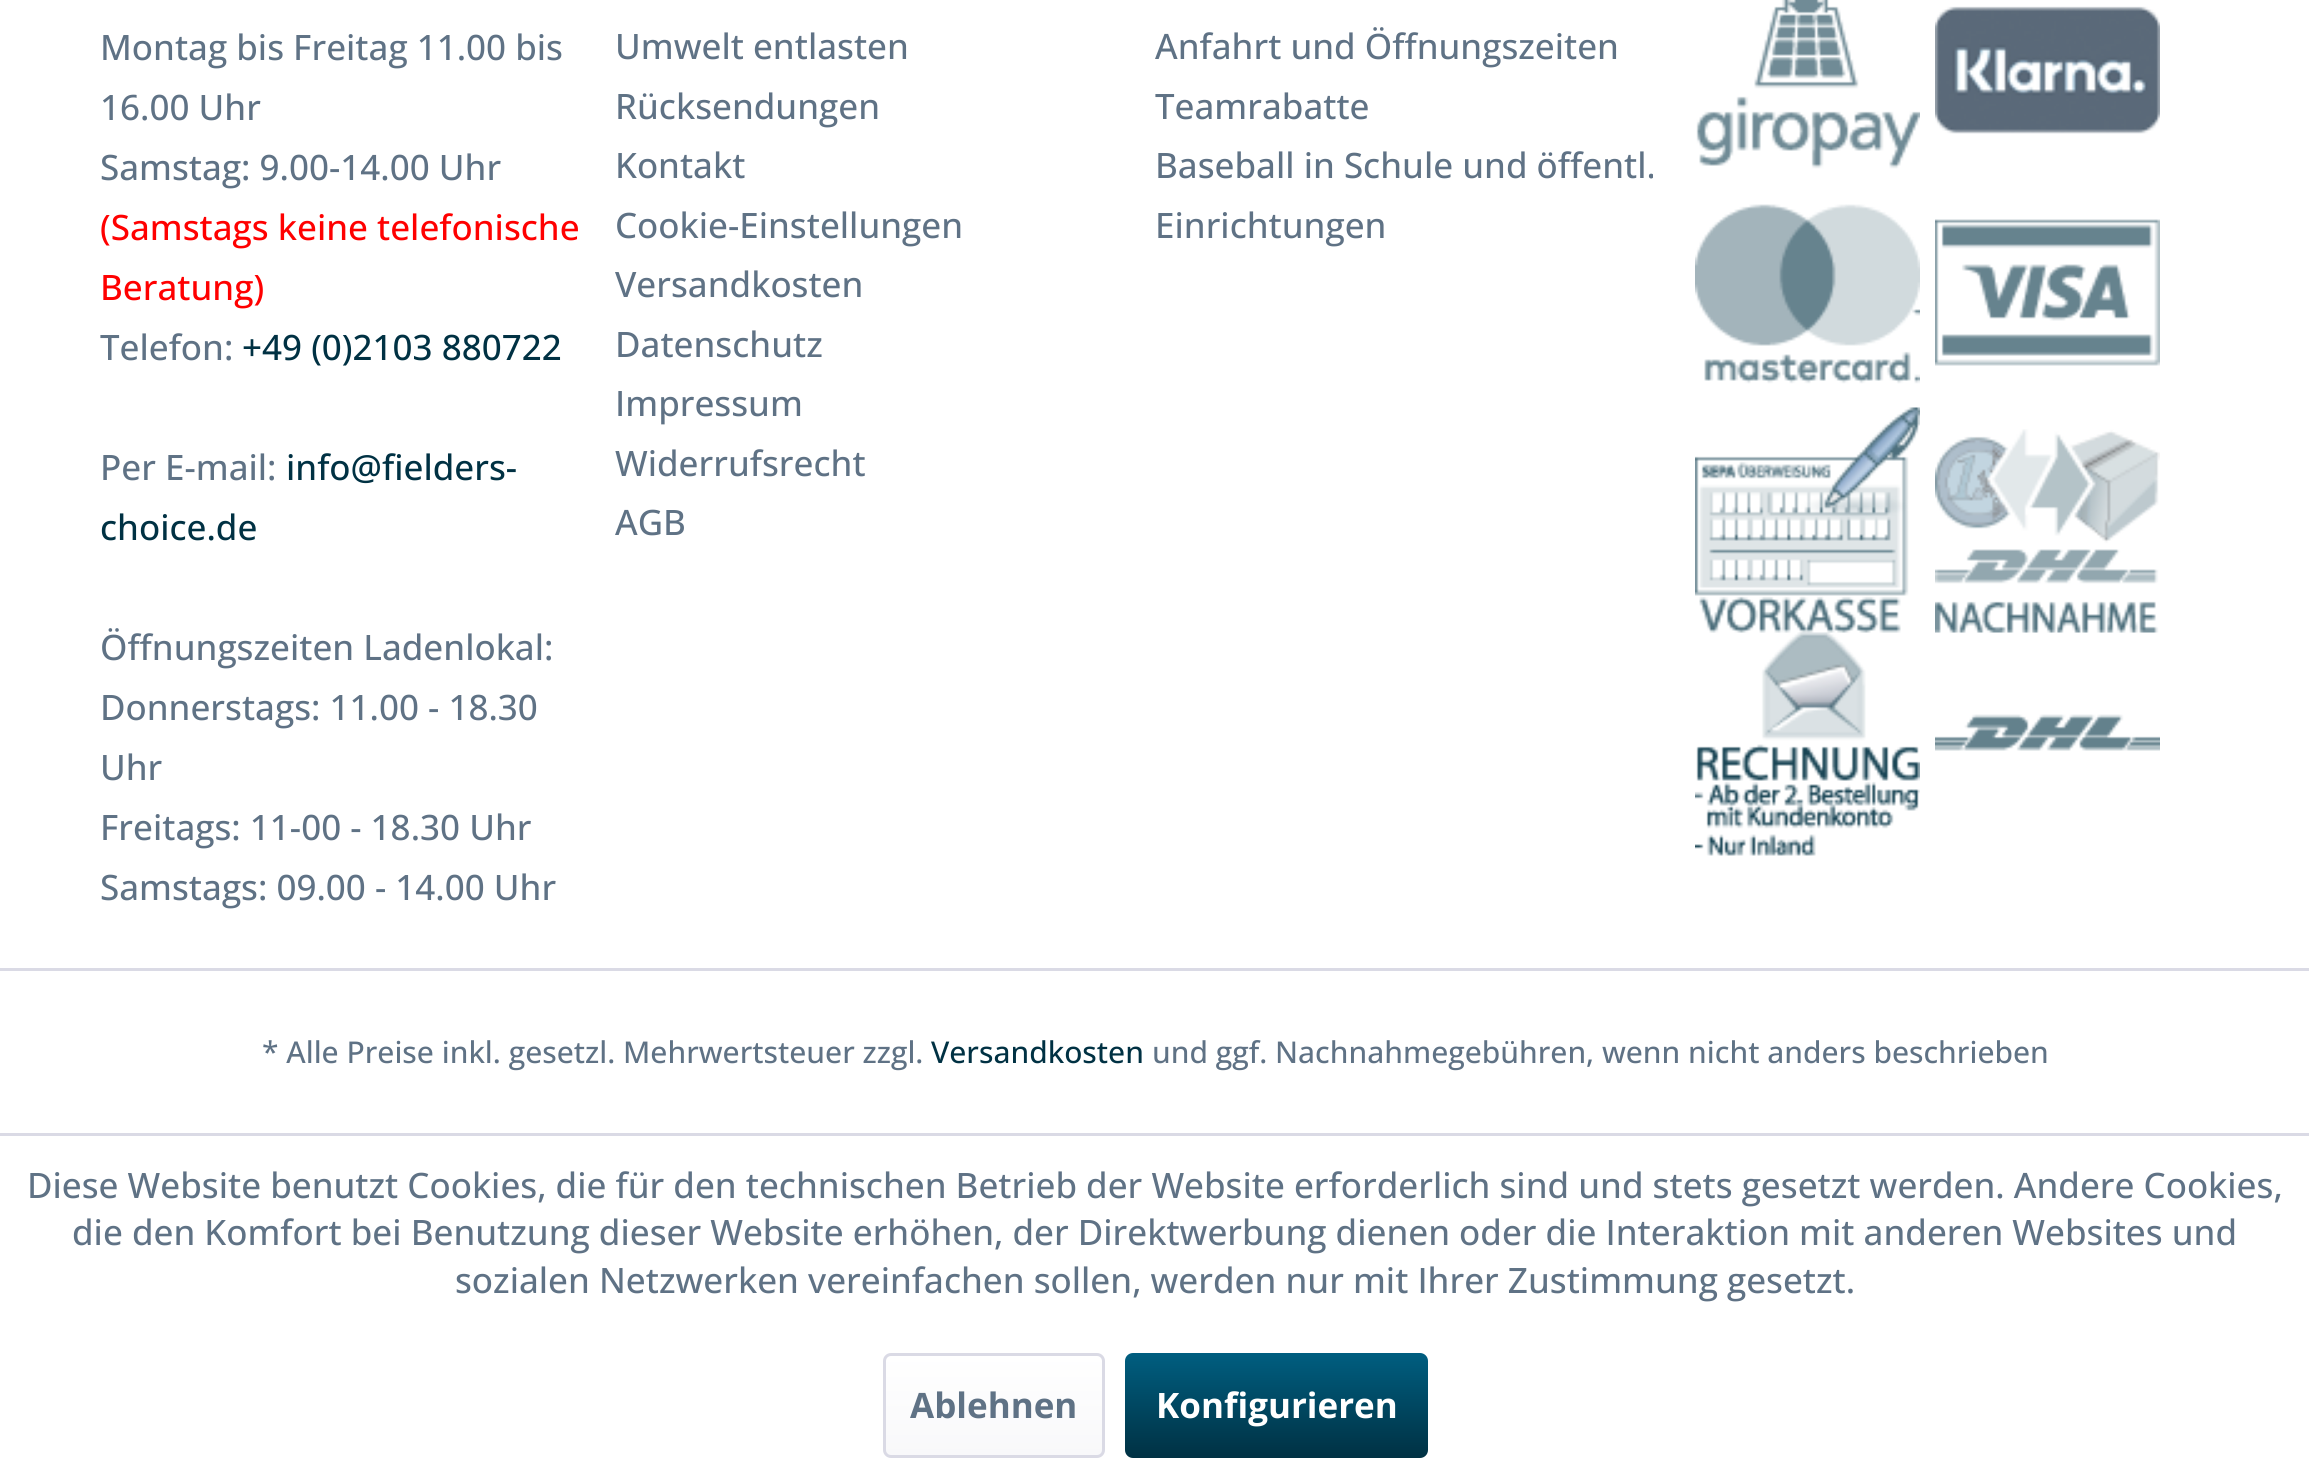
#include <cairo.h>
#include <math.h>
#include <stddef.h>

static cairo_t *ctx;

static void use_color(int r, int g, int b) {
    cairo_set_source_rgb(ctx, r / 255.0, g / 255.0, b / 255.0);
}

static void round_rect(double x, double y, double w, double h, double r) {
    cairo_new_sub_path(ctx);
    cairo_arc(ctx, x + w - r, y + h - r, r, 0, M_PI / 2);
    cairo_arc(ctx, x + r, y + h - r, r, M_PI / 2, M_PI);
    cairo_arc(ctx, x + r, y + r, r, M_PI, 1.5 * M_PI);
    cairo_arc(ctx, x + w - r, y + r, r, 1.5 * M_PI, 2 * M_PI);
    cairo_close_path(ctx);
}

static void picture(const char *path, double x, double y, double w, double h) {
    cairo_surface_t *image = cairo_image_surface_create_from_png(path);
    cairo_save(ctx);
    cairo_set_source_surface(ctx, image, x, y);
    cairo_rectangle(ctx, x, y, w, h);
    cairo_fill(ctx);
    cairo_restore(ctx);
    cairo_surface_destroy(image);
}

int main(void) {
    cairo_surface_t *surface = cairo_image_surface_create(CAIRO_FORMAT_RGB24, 2309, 1482);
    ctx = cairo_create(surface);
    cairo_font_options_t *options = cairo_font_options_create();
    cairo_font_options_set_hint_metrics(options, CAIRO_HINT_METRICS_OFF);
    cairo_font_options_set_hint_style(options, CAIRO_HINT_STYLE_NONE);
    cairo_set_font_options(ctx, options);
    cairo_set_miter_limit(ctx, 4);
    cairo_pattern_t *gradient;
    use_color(255, 255, 255);
    cairo_paint(ctx);
    use_color(218, 218, 229);
    cairo_rectangle(ctx, 0, 968, 2309, 3);
    cairo_fill(ctx);
    cairo_select_font_face(ctx, "Open Sans Medium", CAIRO_FONT_SLANT_NORMAL, CAIRO_FONT_WEIGHT_NORMAL);
    cairo_set_font_size(ctx, 35);
    use_color(95, 114, 133);
    cairo_move_to(ctx, 100, 60);
    cairo_show_text(ctx, "Montag bis Freitag 11.00 bis");
    cairo_move_to(ctx, 100, 120);
    cairo_show_text(ctx, "16.00 Uhr");
    cairo_move_to(ctx, 100, 180);
    cairo_show_text(ctx, "Samstag: 9.00-14.00 Uhr");
    use_color(255, 0, 0);
    cairo_move_to(ctx, 100, 240);
    cairo_show_text(ctx, "(Samstags keine telefonische");
    cairo_move_to(ctx, 100, 300);
    cairo_show_text(ctx, "Beratung)");
    use_color(95, 114, 133);
    cairo_move_to(ctx, 100, 360);
    cairo_show_text(ctx, "Telefon:");
    use_color(0, 49, 67);
    cairo_move_to(ctx, 242, 360);
    cairo_show_text(ctx, "+49 (0)2103 880722");
    use_color(95, 114, 133);
    cairo_move_to(ctx, 100, 480);
    cairo_show_text(ctx, "Per E-mail:");
    use_color(0, 49, 67);
    cairo_move_to(ctx, 286, 480);
    cairo_show_text(ctx, "info@fielders-");
    cairo_move_to(ctx, 100, 540);
    cairo_show_text(ctx, "choice.de");
    use_color(95, 114, 133);
    cairo_move_to(ctx, 100, 660);
    cairo_show_text(ctx, "Öffnungszeiten Ladenlokal:");
    cairo_move_to(ctx, 100, 720);
    cairo_show_text(ctx, "Donnerstags: 11.00 - 18.30");
    cairo_move_to(ctx, 100, 780);
    cairo_show_text(ctx, "Uhr");
    cairo_move_to(ctx, 100, 840);
    cairo_show_text(ctx, "Freitags: 11-00 - 18.30 Uhr");
    cairo_move_to(ctx, 100, 900);
    cairo_show_text(ctx, "Samstags: 09.00 - 14.00 Uhr");
    cairo_move_to(ctx, 615, 59);
    cairo_show_text(ctx, "Umwelt entlasten");
    cairo_move_to(ctx, 615, 119);
    cairo_show_text(ctx, "Rücksendungen");
    cairo_move_to(ctx, 615, 178);
    cairo_show_text(ctx, "Kontakt");
    cairo_move_to(ctx, 615, 238);
    cairo_show_text(ctx, "Cookie-Einstellungen");
    cairo_move_to(ctx, 615, 297);
    cairo_show_text(ctx, "Versandkosten");
    cairo_move_to(ctx, 615, 357);
    cairo_show_text(ctx, "Datenschutz");
    cairo_move_to(ctx, 615, 416);
    cairo_show_text(ctx, "Impressum");
    cairo_move_to(ctx, 615, 476);
    cairo_show_text(ctx, "Widerrufsrecht");
    cairo_move_to(ctx, 615, 535);
    cairo_show_text(ctx, "AGB");
    cairo_move_to(ctx, 1155, 59);
    cairo_show_text(ctx, "Anfahrt und Öffnungszeiten");
    cairo_move_to(ctx, 1155, 119);
    cairo_show_text(ctx, "Teamrabatte");
    cairo_move_to(ctx, 1155, 178);
    cairo_show_text(ctx, "Baseball in Schule und öffentl.");
    cairo_move_to(ctx, 1155, 238);
    cairo_show_text(ctx, "Einrichtungen");
    picture("img1.png", 1696, 0, 224, 169);
    picture("img2.png", 1935, 6, 225, 128);
    picture("img3.png", 1695, 204, 225, 180);
    picture("img4.png", 1935, 219, 225, 147);
    picture("img5.png", 1695, 407, 225, 226);
    picture("img6.png", 1935, 429, 225, 204);
    picture("img7.png", 1695, 632, 225, 224);
    picture("img8.png", 1935, 714, 225, 37);
    cairo_set_font_size(ctx, 30);
    cairo_move_to(ctx, 262, 1063);
    cairo_show_text(ctx, "* Alle Preise inkl. gesetzl. Mehrwertsteuer zzgl.");
    use_color(0, 49, 67);
    cairo_move_to(ctx, 931, 1063);
    cairo_show_text(ctx, "Versandkosten");
    use_color(95, 114, 133);
    cairo_move_to(ctx, 1152, 1063);
    cairo_show_text(ctx, "und ggf. Nachnahmegebühren, wenn nicht anders beschrieben");
    use_color(218, 218, 229);
    cairo_rectangle(ctx, 0, 1133, 2309, 3);
    cairo_fill(ctx);
    cairo_set_font_size(ctx, 35);
    use_color(95, 114, 133);
    cairo_move_to(ctx, 27, 1198);
    cairo_show_text(ctx, "Diese Website benutzt Cookies, die für den technischen Betrieb der Website erforderlich sind und stets gesetzt werden. Andere Cookies,");
    cairo_move_to(ctx, 72, 1245);
    cairo_show_text(ctx, "die den Komfort bei Benutzung dieser Website erhöhen, der Direktwerbung dienen oder die Interaktion mit anderen Websites und");
    cairo_move_to(ctx, 455, 1293);
    cairo_show_text(ctx, "sozialen Netzwerken vereinfachen sollen, werden nur mit Ihrer Zustimmung gesetzt.");
    gradient = cairo_pattern_create_linear(994, 1355, 994, 1455);
    cairo_pattern_add_color_stop_rgba(gradient, 0, 1, 1, 1, 1);
    cairo_pattern_add_color_stop_rgba(gradient, 1, 0.973, 0.973, 0.98, 1);
    cairo_set_source(ctx, gradient);
    cairo_pattern_destroy(gradient);
    round_rect(885, 1355, 218, 100, 5);
    cairo_fill(ctx);
    round_rect(884.5, 1354.5, 219, 102, 6.5);
    use_color(218, 218, 229);
    cairo_set_line_width(ctx, 3);
    cairo_stroke(ctx);
    cairo_select_font_face(ctx, "Open Sans", CAIRO_FONT_SLANT_NORMAL, CAIRO_FONT_WEIGHT_BOLD);
    use_color(95, 114, 133);
    cairo_move_to(ctx, 910, 1418);
    cairo_show_text(ctx, "Ablehnen");
    gradient = cairo_pattern_create_linear(1276, 1353, 1276, 1458);
    cairo_pattern_add_color_stop_rgba(gradient, 0, 0, 0.369, 0.502, 1);
    cairo_pattern_add_color_stop_rgba(gradient, 1, 0, 0.192, 0.263, 1);
    cairo_set_source(ctx, gradient);
    cairo_pattern_destroy(gradient);
    round_rect(1125, 1353, 303, 105, 8);
    cairo_fill(ctx);
    use_color(255, 255, 255);
    cairo_move_to(ctx, 1156, 1418);
    cairo_show_text(ctx, "Konfigurieren");
    cairo_surface_write_to_png(surface, "result.png");
    cairo_font_options_destroy(options);
    cairo_destroy(ctx);
    cairo_surface_destroy(surface);
    return 0;
}
